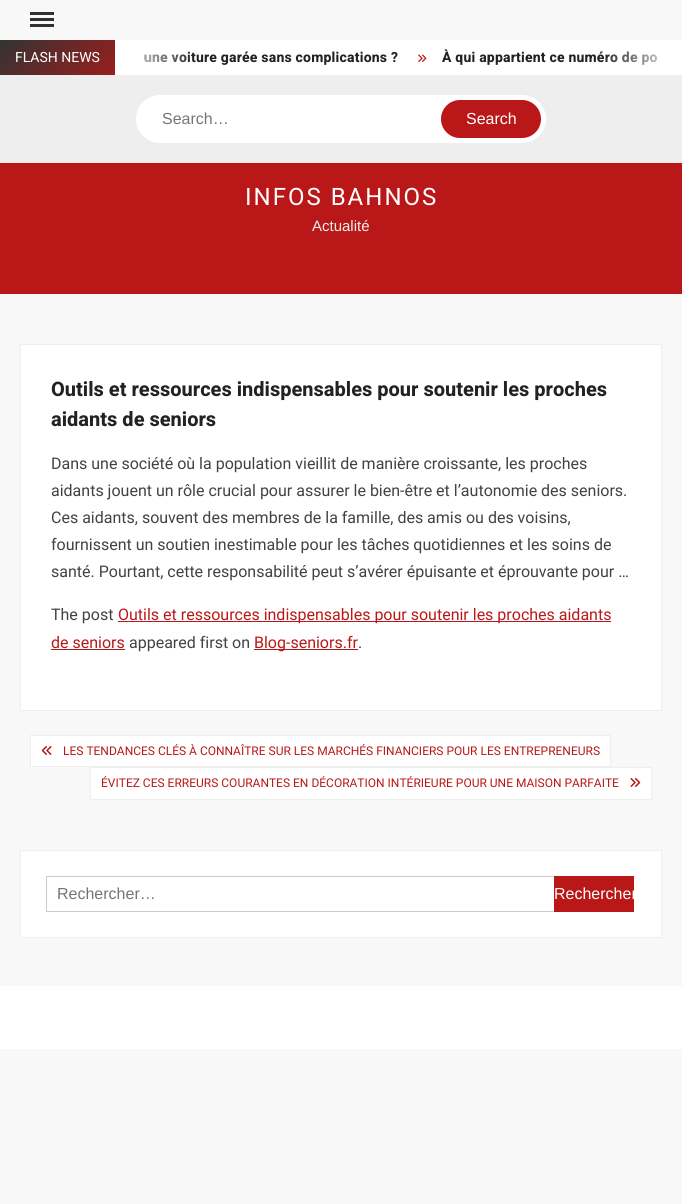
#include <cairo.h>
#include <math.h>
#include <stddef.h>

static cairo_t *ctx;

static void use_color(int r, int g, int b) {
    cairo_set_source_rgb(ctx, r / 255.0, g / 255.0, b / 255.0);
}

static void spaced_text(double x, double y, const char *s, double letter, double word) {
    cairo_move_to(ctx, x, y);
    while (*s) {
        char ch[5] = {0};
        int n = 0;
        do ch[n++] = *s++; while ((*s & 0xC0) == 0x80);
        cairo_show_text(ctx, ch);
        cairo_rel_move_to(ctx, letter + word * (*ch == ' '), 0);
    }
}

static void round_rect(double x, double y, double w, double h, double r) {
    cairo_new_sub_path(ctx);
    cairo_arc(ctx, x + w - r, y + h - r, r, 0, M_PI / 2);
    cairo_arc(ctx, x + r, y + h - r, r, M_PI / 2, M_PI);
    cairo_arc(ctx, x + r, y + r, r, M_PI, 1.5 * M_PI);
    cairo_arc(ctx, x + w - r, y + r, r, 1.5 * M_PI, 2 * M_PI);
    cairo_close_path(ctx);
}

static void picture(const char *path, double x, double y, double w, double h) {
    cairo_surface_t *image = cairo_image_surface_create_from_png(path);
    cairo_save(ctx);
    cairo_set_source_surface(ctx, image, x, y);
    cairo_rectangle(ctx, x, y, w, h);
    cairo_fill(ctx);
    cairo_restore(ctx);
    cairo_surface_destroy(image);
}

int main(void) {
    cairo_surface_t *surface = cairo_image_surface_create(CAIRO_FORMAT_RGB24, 682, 1204);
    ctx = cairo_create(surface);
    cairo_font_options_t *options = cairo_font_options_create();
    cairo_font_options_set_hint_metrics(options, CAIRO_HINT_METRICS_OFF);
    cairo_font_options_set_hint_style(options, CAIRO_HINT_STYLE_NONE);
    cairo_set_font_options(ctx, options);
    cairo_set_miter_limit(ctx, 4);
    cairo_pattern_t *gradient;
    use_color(248, 248, 248);
    cairo_paint(ctx);
    use_color(46, 50, 51);
    cairo_rectangle(ctx, 30, 18, 24, 3);
    cairo_fill(ctx);
    cairo_rectangle(ctx, 30, 12, 24, 3);
    cairo_fill(ctx);
    cairo_rectangle(ctx, 30, 24, 24, 3);
    cairo_fill(ctx);
    use_color(255, 255, 255);
    cairo_rectangle(ctx, 115, 40, 567, 35);
    cairo_fill(ctx);
    gradient = cairo_pattern_create_linear(380, 260, 80, -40);
    cairo_pattern_add_color_stop_rgba(gradient, 0, 0.729, 0.094, 0.094, 1);
    cairo_pattern_add_color_stop_rgba(gradient, 0.33, 0.933, 0.933, 0.933, 1);
    cairo_pattern_add_color_stop_rgba(gradient, 0.67, 0.729, 0.094, 0.094, 1);
    cairo_pattern_add_color_stop_rgba(gradient, 1, 0.2, 0.2, 0.2, 1);
    cairo_set_source(ctx, gradient);
    cairo_pattern_destroy(gradient);
    cairo_rectangle(ctx, 0, 40, 115, 35);
    cairo_fill(ctx);
    cairo_select_font_face(ctx, "Heebo", CAIRO_FONT_SLANT_NORMAL, CAIRO_FONT_WEIGHT_NORMAL);
    cairo_set_font_size(ctx, 14);
    use_color(255, 255, 255);
    cairo_move_to(ctx, 15, 62);
    cairo_show_text(ctx, "FLASH NEWS");
    cairo_select_font_face(ctx, "Heebo", CAIRO_FONT_SLANT_NORMAL, CAIRO_FONT_WEIGHT_BOLD);
    use_color(34, 34, 34);
    spaced_text(144, 62, "une voiture garée sans complications ?", 0.2, 0);
    gradient = cairo_pattern_create_linear(115, 58, 195, 58);
    cairo_pattern_add_color_stop_rgba(gradient, 0, 1, 1, 1, 1);
    cairo_pattern_add_color_stop_rgba(gradient, 1, 1, 1, 1, 0);
    cairo_set_source(ctx, gradient);
    cairo_pattern_destroy(gradient);
    cairo_rectangle(ctx, 145, 51, 48, 12);
    cairo_fill(ctx);
    picture("img1.png", 418, 54, 9, 8);
    use_color(34, 34, 34);
    spaced_text(442, 62, "À qui appartient ce numéro de po", 0.2, 0);
    gradient = cairo_pattern_create_linear(602, 58, 682, 58);
    cairo_pattern_add_color_stop_rgba(gradient, 0, 1, 1, 1, 0);
    cairo_pattern_add_color_stop_rgba(gradient, 1, 1, 1, 1, 1);
    cairo_set_source(ctx, gradient);
    cairo_pattern_destroy(gradient);
    cairo_rectangle(ctx, 604, 51, 54, 14);
    cairo_fill(ctx);
    use_color(238, 238, 238);
    cairo_rectangle(ctx, 0, 75, 682, 88);
    cairo_fill(ctx);
    use_color(255, 255, 255);
    round_rect(136, 95, 410, 48, 24);
    cairo_fill(ctx);
    cairo_select_font_face(ctx, "Arimo", CAIRO_FONT_SLANT_NORMAL, CAIRO_FONT_WEIGHT_NORMAL);
    cairo_set_font_size(ctx, 16);
    use_color(117, 117, 117);
    cairo_move_to(ctx, 162, 124);
    cairo_show_text(ctx, "Search…");
    use_color(186, 24, 24);
    round_rect(441, 100, 100, 38, 19);
    cairo_fill(ctx);
    use_color(255, 255, 255);
    cairo_move_to(ctx, 466, 124);
    cairo_show_text(ctx, "Search");
    use_color(186, 24, 24);
    cairo_rectangle(ctx, 0, 163, 682, 131);
    cairo_fill(ctx);
    cairo_select_font_face(ctx, "Heebo", CAIRO_FONT_SLANT_NORMAL, CAIRO_FONT_WEIGHT_NORMAL);
    cairo_set_font_size(ctx, 24);
    use_color(255, 255, 255);
    spaced_text(245, 205, "INFOS BAHNOS", 2, 0);
    cairo_select_font_face(ctx, "Arimo", CAIRO_FONT_SLANT_NORMAL, CAIRO_FONT_WEIGHT_NORMAL);
    cairo_set_font_size(ctx, 15);
    use_color(238, 238, 238);
    cairo_move_to(ctx, 312, 231);
    cairo_show_text(ctx, "Actualité");
    use_color(255, 255, 255);
    cairo_rectangle(ctx, 20.5, 344.5, 641, 366);
    cairo_fill_preserve(ctx);
    use_color(238, 238, 238);
    cairo_set_line_width(ctx, 1);
    cairo_stroke(ctx);
    cairo_select_font_face(ctx, "Heebo", CAIRO_FONT_SLANT_NORMAL, CAIRO_FONT_WEIGHT_BOLD);
    cairo_set_font_size(ctx, 20);
    use_color(34, 34, 34);
    cairo_move_to(ctx, 51, 396);
    cairo_show_text(ctx, "Outils et ressources indispensables pour soutenir les proches");
    cairo_move_to(ctx, 51, 426);
    cairo_show_text(ctx, "aidants de seniors");
    cairo_select_font_face(ctx, "Roboto", CAIRO_FONT_SLANT_NORMAL, CAIRO_FONT_WEIGHT_NORMAL);
    cairo_set_font_size(ctx, 16);
    use_color(66, 66, 66);
    cairo_move_to(ctx, 51, 469);
    cairo_show_text(ctx, "Dans une société où la population vieillit de manière croissante, les proches");
    cairo_move_to(ctx, 51, 496);
    cairo_show_text(ctx, "aidants jouent un rôle crucial pour assurer le bien-être et l’autonomie des seniors.");
    cairo_move_to(ctx, 51, 523);
    cairo_show_text(ctx, "Ces aidants, souvent des membres de la famille, des amis ou des voisins,");
    cairo_move_to(ctx, 51, 550);
    cairo_show_text(ctx, "fournissent un soutien inestimable pour les tâches quotidiennes et les soins de");
    cairo_move_to(ctx, 51, 577);
    cairo_show_text(ctx, "santé. Pourtant, cette responsabilité peut s’avérer épuisante et éprouvante pour …");
    cairo_move_to(ctx, 51, 620);
    cairo_show_text(ctx, "The post");
    use_color(186, 24, 24);
    cairo_rectangle(ctx, 118, 621, 493, 1);
    cairo_fill(ctx);
    cairo_move_to(ctx, 118, 620);
    cairo_show_text(ctx, "Outils et ressources indispensables pour soutenir les proches aidants");
    cairo_move_to(ctx, 51, 648);
    cairo_show_text(ctx, "de seniors");
    cairo_rectangle(ctx, 51, 649, 74, 1);
    cairo_fill(ctx);
    use_color(66, 66, 66);
    cairo_move_to(ctx, 129, 648);
    cairo_show_text(ctx, "appeared first on");
    use_color(186, 24, 24);
    cairo_rectangle(ctx, 254, 649, 104, 1);
    cairo_fill(ctx);
    cairo_move_to(ctx, 254, 648);
    cairo_show_text(ctx, "Blog-seniors.fr");
    use_color(66, 66, 66);
    cairo_move_to(ctx, 358, 648);
    cairo_show_text(ctx, ".");
    use_color(255, 255, 255);
    cairo_rectangle(ctx, 30.5, 735.5, 580, 31);
    cairo_fill_preserve(ctx);
    use_color(238, 238, 238);
    cairo_stroke(ctx);
    picture("img2.png", 41, 746, 11, 9);
    cairo_set_font_size(ctx, 12);
    use_color(186, 24, 24);
    cairo_move_to(ctx, 63, 755);
    cairo_show_text(ctx, "LES TENDANCES CLÉS À CONNAÎTRE SUR LES MARCHÉS FINANCIERS POUR LES ENTREPRENEURS");
    use_color(255, 255, 255);
    cairo_rectangle(ctx, 90.5, 767.5, 561, 32);
    cairo_fill_preserve(ctx);
    use_color(238, 238, 238);
    cairo_stroke(ctx);
    use_color(186, 24, 24);
    cairo_move_to(ctx, 101, 787);
    cairo_show_text(ctx, "ÉVITEZ CES ERREURS COURANTES EN DÉCORATION INTÉRIEURE POUR UNE MAISON PARFAITE");
    picture("img3.png", 630, 778, 11, 9);
    use_color(255, 255, 255);
    cairo_rectangle(ctx, 20.5, 850.5, 641, 87);
    cairo_fill_preserve(ctx);
    use_color(238, 238, 238);
    cairo_stroke(ctx);
    cairo_rectangle(ctx, 46.5, 876.5, 508, 35);
    use_color(204, 204, 204);
    cairo_stroke(ctx);
    cairo_select_font_face(ctx, "Arimo", CAIRO_FONT_SLANT_NORMAL, CAIRO_FONT_WEIGHT_NORMAL);
    cairo_set_font_size(ctx, 16);
    use_color(117, 117, 117);
    cairo_move_to(ctx, 57, 899);
    cairo_show_text(ctx, "Rechercher…");
    use_color(186, 24, 24);
    cairo_rectangle(ctx, 554, 876, 80, 36);
    cairo_fill(ctx);
    cairo_save(ctx);
    cairo_rectangle(ctx, 554, 876, 80, 36);
    cairo_clip(ctx);
    use_color(255, 255, 255);
    cairo_move_to(ctx, 554, 899);
    cairo_show_text(ctx, "Rechercher");
    cairo_restore(ctx);
    use_color(255, 255, 255);
    cairo_rectangle(ctx, 0, 986, 682, 63);
    cairo_fill(ctx);
    cairo_surface_write_to_png(surface, "result.png");
    cairo_font_options_destroy(options);
    cairo_destroy(ctx);
    cairo_surface_destroy(surface);
    return 0;
}
